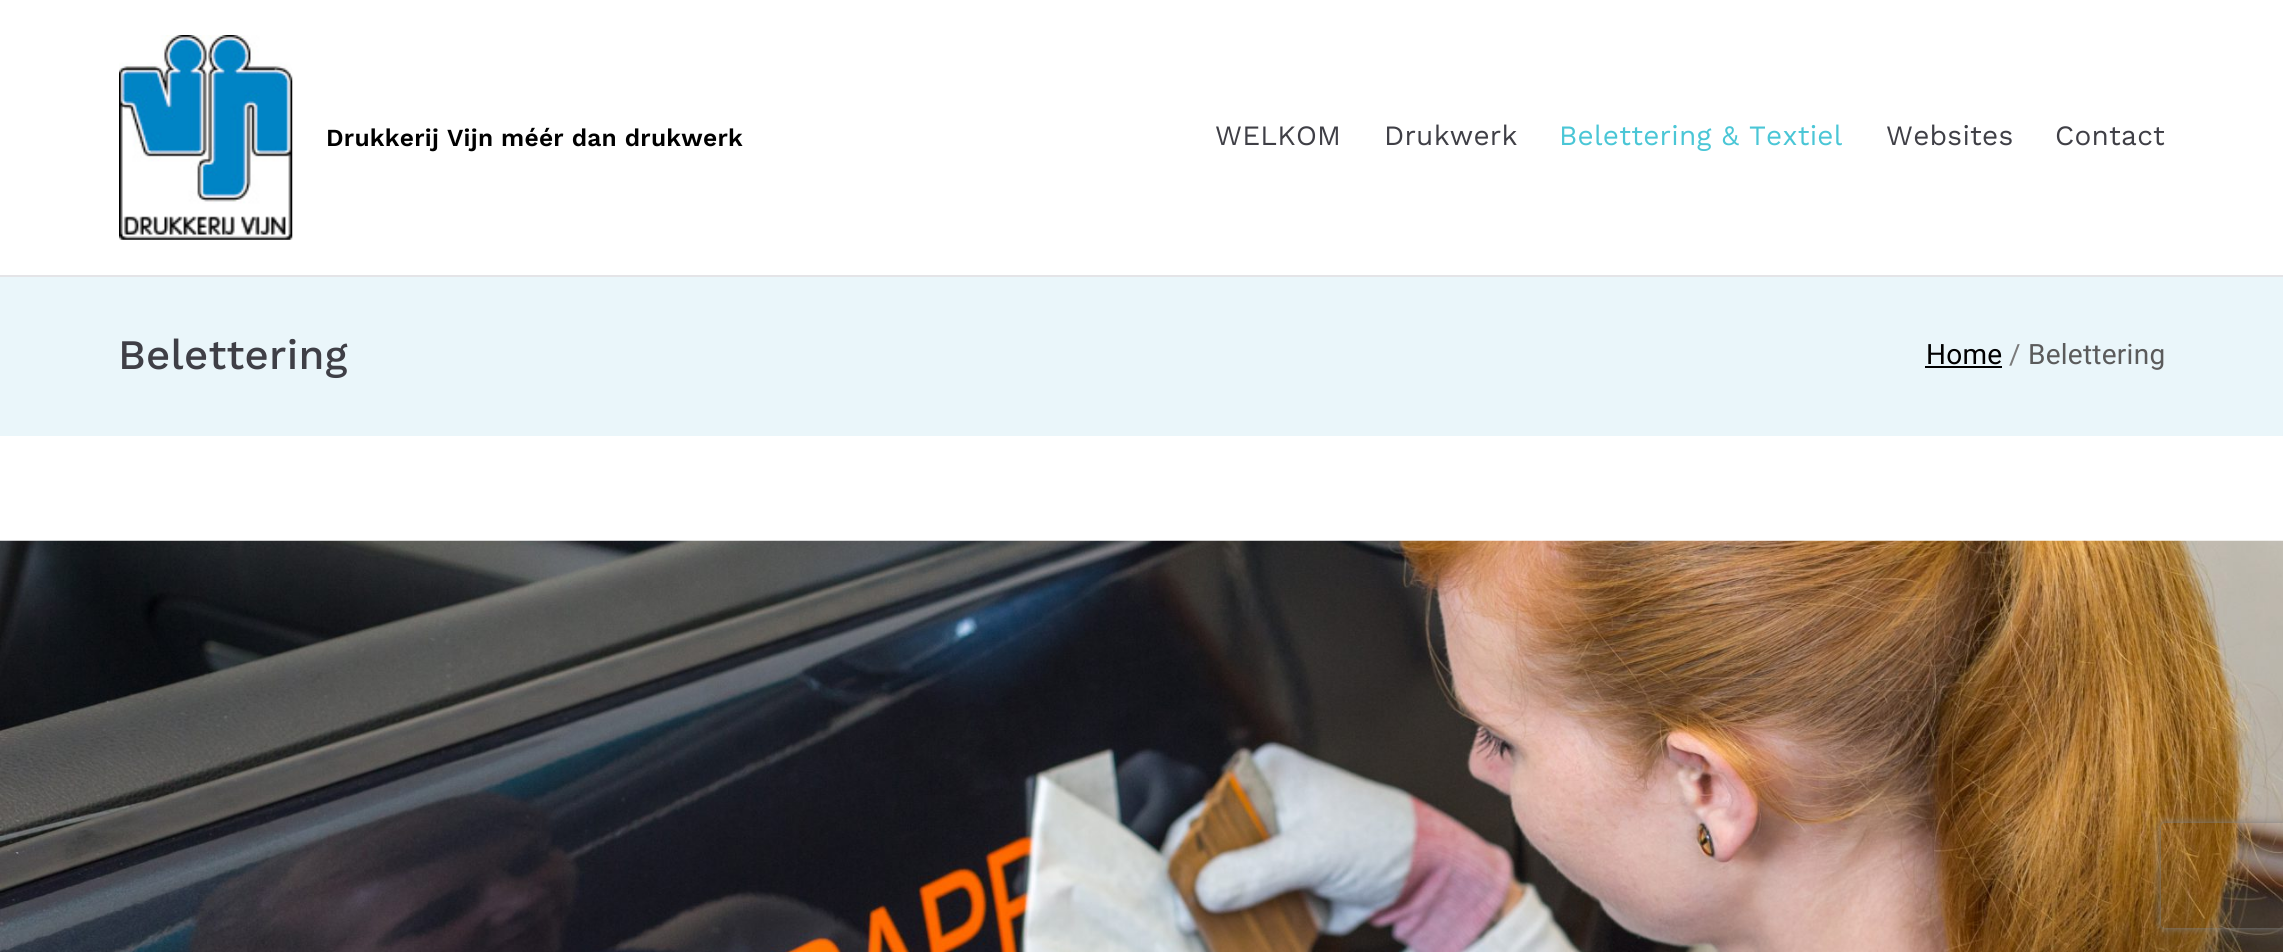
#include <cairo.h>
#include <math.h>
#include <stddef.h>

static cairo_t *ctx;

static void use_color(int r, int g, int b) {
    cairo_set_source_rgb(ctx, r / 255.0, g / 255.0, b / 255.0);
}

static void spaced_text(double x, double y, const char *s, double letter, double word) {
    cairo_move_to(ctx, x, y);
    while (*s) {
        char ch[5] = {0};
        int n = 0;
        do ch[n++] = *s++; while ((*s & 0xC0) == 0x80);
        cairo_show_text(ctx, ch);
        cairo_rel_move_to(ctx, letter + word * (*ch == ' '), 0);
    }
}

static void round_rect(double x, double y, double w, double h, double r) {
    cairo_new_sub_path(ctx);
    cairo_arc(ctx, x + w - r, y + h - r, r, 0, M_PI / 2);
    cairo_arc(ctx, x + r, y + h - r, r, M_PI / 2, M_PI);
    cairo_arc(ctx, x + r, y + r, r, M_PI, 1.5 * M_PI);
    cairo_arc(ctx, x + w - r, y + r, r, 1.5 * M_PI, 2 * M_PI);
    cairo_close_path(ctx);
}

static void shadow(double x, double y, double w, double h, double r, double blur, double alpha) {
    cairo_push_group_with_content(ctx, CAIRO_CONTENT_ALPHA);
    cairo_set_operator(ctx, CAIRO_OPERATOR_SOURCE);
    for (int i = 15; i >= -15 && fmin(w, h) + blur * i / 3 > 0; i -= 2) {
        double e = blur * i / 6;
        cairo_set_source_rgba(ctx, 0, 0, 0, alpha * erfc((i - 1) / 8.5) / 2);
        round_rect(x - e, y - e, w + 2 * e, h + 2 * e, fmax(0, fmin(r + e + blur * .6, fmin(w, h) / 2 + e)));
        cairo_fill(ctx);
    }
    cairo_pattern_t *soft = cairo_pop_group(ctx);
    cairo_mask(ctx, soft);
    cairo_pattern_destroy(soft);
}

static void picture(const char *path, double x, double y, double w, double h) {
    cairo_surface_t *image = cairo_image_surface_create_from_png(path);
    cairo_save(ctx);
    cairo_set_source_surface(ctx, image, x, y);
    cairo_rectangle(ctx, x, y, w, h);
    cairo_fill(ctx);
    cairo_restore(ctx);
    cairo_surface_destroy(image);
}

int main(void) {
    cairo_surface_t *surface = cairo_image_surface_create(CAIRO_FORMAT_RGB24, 2283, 952);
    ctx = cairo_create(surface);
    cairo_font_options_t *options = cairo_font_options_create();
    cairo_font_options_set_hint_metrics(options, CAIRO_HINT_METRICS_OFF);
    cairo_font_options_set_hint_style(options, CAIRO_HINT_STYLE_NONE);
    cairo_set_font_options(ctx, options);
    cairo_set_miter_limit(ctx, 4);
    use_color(228, 228, 231);
    cairo_paint(ctx);
    use_color(255, 255, 255);
    cairo_rectangle(ctx, 0, 0, 2283, 275);
    cairo_fill(ctx);
    picture("img1.png", 119, 35, 174, 205);
    cairo_select_font_face(ctx, "Work Sans SemiBold", CAIRO_FONT_SLANT_NORMAL, CAIRO_FONT_WEIGHT_NORMAL);
    cairo_set_font_size(ctx, 24.5);
    use_color(0, 0, 0);
    spaced_text(326, 146, "Drukkerij Vijn méér dan drukwerk", 0.25, 0);
    cairo_select_font_face(ctx, "Work Sans", CAIRO_FONT_SLANT_NORMAL, CAIRO_FONT_WEIGHT_NORMAL);
    cairo_set_font_size(ctx, 28);
    use_color(63, 63, 70);
    spaced_text(1215, 145, "WELKOM", 0.25, 0);
    spaced_text(1384, 145, "Drukwerk", 0.25, 0);
    use_color(74, 198, 214);
    spaced_text(1559, 145, "Belettering & Textiel", 0.25, 0);
    use_color(63, 63, 70);
    spaced_text(1886, 145, "Websites", 0.25, 0);
    spaced_text(2055, 145, "Contact", 0.25, 0);
    use_color(234, 246, 250);
    cairo_rectangle(ctx, 0, 277, 2283, 159);
    cairo_fill(ctx);
    cairo_select_font_face(ctx, "Work Sans Medium", CAIRO_FONT_SLANT_NORMAL, CAIRO_FONT_WEIGHT_NORMAL);
    cairo_set_font_size(ctx, 42);
    use_color(63, 63, 70);
    spaced_text(118, 369, "Belettering", 0.25, 0);
    cairo_select_font_face(ctx, "Roboto", CAIRO_FONT_SLANT_NORMAL, CAIRO_FONT_WEIGHT_NORMAL);
    cairo_set_font_size(ctx, 28);
    use_color(0, 0, 0);
    spaced_text(1926, 364, "Home", 0.25, 0);
    cairo_rectangle(ctx, 1925, 366, 77, 2);
    cairo_fill(ctx);
    use_color(123, 123, 123);
    spaced_text(2009, 364, "/", 0.25, 0);
    use_color(91, 91, 91);
    spaced_text(2028, 364, "Belettering", 0.25, 0);
    use_color(255, 255, 255);
    cairo_rectangle(ctx, 0, 436, 2283, 105);
    cairo_fill(ctx);
    picture("img2.png", 0, 540, 2283, 412);
    cairo_save(ctx);
    cairo_set_fill_rule(ctx, CAIRO_FILL_RULE_EVEN_ODD);
    cairo_new_path(ctx);
    cairo_move_to(ctx, 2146, 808);
    cairo_line_to(ctx, 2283, 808);
    cairo_line_to(ctx, 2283, 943);
    cairo_line_to(ctx, 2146, 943);
    cairo_close_path(ctx);
    cairo_move_to(ctx, 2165, 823);
    cairo_line_to(ctx, 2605, 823);
    cairo_curve_to(ctx, 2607, 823, 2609, 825, 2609, 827);
    cairo_line_to(ctx, 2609, 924);
    cairo_curve_to(ctx, 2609, 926, 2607, 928, 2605, 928);
    cairo_line_to(ctx, 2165, 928);
    cairo_curve_to(ctx, 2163, 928, 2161, 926, 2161, 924);
    cairo_line_to(ctx, 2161, 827);
    cairo_curve_to(ctx, 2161, 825, 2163, 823, 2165, 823);
    cairo_close_path(ctx);
    cairo_clip(ctx);
    use_color(128, 128, 128);
    shadow(2161, 823, 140, 105, 4, 4.5, 1);
    cairo_restore(ctx);
    cairo_surface_write_to_png(surface, "result.png");
    cairo_font_options_destroy(options);
    cairo_destroy(ctx);
    cairo_surface_destroy(surface);
    return 0;
}
